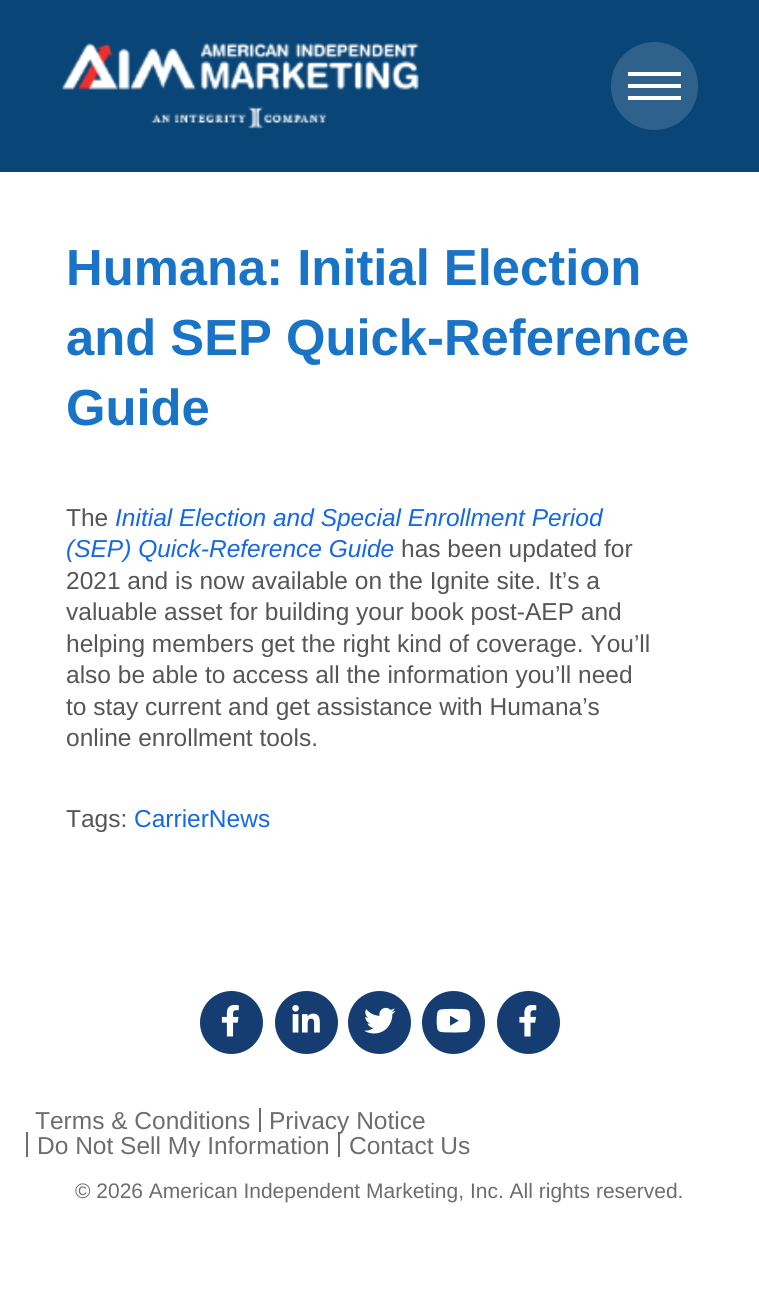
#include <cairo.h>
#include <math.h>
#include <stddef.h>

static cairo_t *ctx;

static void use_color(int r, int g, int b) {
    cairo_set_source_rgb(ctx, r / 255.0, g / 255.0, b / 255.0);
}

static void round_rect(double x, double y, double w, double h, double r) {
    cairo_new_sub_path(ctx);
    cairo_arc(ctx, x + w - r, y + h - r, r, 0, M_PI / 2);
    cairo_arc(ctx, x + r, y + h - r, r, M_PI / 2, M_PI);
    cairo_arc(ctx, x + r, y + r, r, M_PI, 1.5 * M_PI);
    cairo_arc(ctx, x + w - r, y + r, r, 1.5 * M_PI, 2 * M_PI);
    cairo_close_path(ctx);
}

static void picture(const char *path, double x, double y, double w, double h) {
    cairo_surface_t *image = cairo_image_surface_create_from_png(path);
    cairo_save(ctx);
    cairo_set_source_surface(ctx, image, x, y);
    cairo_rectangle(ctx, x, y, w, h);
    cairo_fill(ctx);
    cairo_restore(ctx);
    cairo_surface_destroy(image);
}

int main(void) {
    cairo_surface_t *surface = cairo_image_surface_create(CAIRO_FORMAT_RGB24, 759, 1311);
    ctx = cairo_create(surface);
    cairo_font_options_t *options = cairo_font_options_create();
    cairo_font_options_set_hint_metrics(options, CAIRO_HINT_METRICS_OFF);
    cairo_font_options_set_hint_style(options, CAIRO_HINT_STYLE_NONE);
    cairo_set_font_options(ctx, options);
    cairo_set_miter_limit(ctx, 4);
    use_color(255, 255, 255);
    cairo_paint(ctx);
    use_color(9, 69, 118);
    cairo_rectangle(ctx, 0, 0, 759, 172);
    cairo_fill(ctx);
    picture("img1.png", 61, 43, 358, 86);
    use_color(46, 97, 139);
    round_rect(611, 42, 87, 88, 43.5);
    cairo_fill(ctx);
    use_color(255, 255, 255);
    cairo_rectangle(ctx, 628, 72, 53, 4);
    cairo_fill(ctx);
    cairo_rectangle(ctx, 628, 84, 53, 4);
    cairo_fill(ctx);
    cairo_rectangle(ctx, 628, 96, 53, 4);
    cairo_fill(ctx);
    cairo_select_font_face(ctx, "Liberation Sans", CAIRO_FONT_SLANT_NORMAL, CAIRO_FONT_WEIGHT_BOLD);
    cairo_set_font_size(ctx, 50.75);
    use_color(25, 115, 198);
    cairo_move_to(ctx, 66, 285);
    cairo_show_text(ctx, "Humana: Initial Election");
    cairo_move_to(ctx, 66, 355);
    cairo_show_text(ctx, "and SEP Quick-Reference");
    cairo_move_to(ctx, 66, 425);
    cairo_show_text(ctx, "Guide");
    cairo_select_font_face(ctx, "Liberation Sans", CAIRO_FONT_SLANT_NORMAL, CAIRO_FONT_WEIGHT_NORMAL);
    cairo_set_font_size(ctx, 24.5);
    use_color(86, 86, 86);
    cairo_move_to(ctx, 66, 526);
    cairo_show_text(ctx, "The");
    cairo_select_font_face(ctx, "Liberation Sans", CAIRO_FONT_SLANT_ITALIC, CAIRO_FONT_WEIGHT_NORMAL);
    use_color(21, 104, 229);
    cairo_move_to(ctx, 115, 526);
    cairo_show_text(ctx, "Initial Election and Special Enrollment Period");
    cairo_move_to(ctx, 66, 557);
    cairo_show_text(ctx, "(SEP) Quick-Reference Guide");
    cairo_select_font_face(ctx, "Liberation Sans", CAIRO_FONT_SLANT_NORMAL, CAIRO_FONT_WEIGHT_NORMAL);
    use_color(86, 86, 86);
    cairo_move_to(ctx, 401, 557);
    cairo_show_text(ctx, "has been updated for");
    cairo_move_to(ctx, 66, 589);
    cairo_show_text(ctx, "2021 and is now available on the Ignite site. It’s a");
    cairo_move_to(ctx, 66, 620);
    cairo_show_text(ctx, "valuable asset for building your book post-AEP and");
    cairo_move_to(ctx, 66, 652);
    cairo_show_text(ctx, "helping members get the right kind of coverage. You’ll");
    cairo_move_to(ctx, 66, 683);
    cairo_show_text(ctx, "also be able to access all the information you’ll need");
    cairo_move_to(ctx, 66, 715);
    cairo_show_text(ctx, "to stay current and get assistance with Humana’s");
    cairo_move_to(ctx, 66, 746);
    cairo_show_text(ctx, "online enrollment tools.");
    cairo_move_to(ctx, 66, 827);
    cairo_show_text(ctx, "Tags:");
    use_color(21, 104, 229);
    cairo_move_to(ctx, 134, 827);
    cairo_show_text(ctx, "CarrierNews");
    use_color(21, 61, 114);
    cairo_new_path(ctx);
    cairo_arc(ctx, 231.5, 1022.5, 31.5, 0, 2 * M_PI);
    cairo_fill(ctx);
    picture("img2.png", 221, 1004, 18, 33);
    cairo_arc(ctx, 306.5, 1022.5, 31.5, 0, 2 * M_PI);
    cairo_fill(ctx);
    picture("img3.png", 292, 1005, 28, 28);
    cairo_arc(ctx, 379.5, 1022.5, 31.5, 0, 2 * M_PI);
    cairo_fill(ctx);
    picture("img4.png", 364, 1007, 32, 27);
    cairo_arc(ctx, 453.5, 1022.5, 31.5, 0, 2 * M_PI);
    cairo_fill(ctx);
    picture("img5.png", 436, 1008, 35, 25);
    cairo_arc(ctx, 528.5, 1022.5, 31.5, 0, 2 * M_PI);
    cairo_fill(ctx);
    picture("img6.png", 519, 1004, 18, 33);
    use_color(109, 109, 109);
    cairo_move_to(ctx, 35, 1129);
    cairo_show_text(ctx, "Terms & Conditions");
    cairo_rectangle(ctx, 259, 1108, 2, 24);
    cairo_fill(ctx);
    cairo_move_to(ctx, 269, 1129);
    cairo_show_text(ctx, "Privacy Notice");
    cairo_rectangle(ctx, 26, 1132, 2, 25);
    cairo_fill(ctx);
    cairo_save(ctx);
    cairo_rectangle(ctx, 26, 1108, 707, 49);
    cairo_clip(ctx);
    cairo_move_to(ctx, 37, 1154);
    cairo_show_text(ctx, "Do Not Sell My Information");
    cairo_restore(ctx);
    cairo_rectangle(ctx, 338, 1132, 2, 25);
    cairo_fill(ctx);
    cairo_move_to(ctx, 349, 1154);
    cairo_show_text(ctx, "Contact Us");
    cairo_set_font_size(ctx, 21);
    cairo_move_to(ctx, 75, 1198);
    cairo_show_text(ctx, "© 2026 American Independent Marketing, Inc. All rights reserved.");
    cairo_surface_write_to_png(surface, "result.png");
    cairo_font_options_destroy(options);
    cairo_destroy(ctx);
    cairo_surface_destroy(surface);
    return 0;
}
